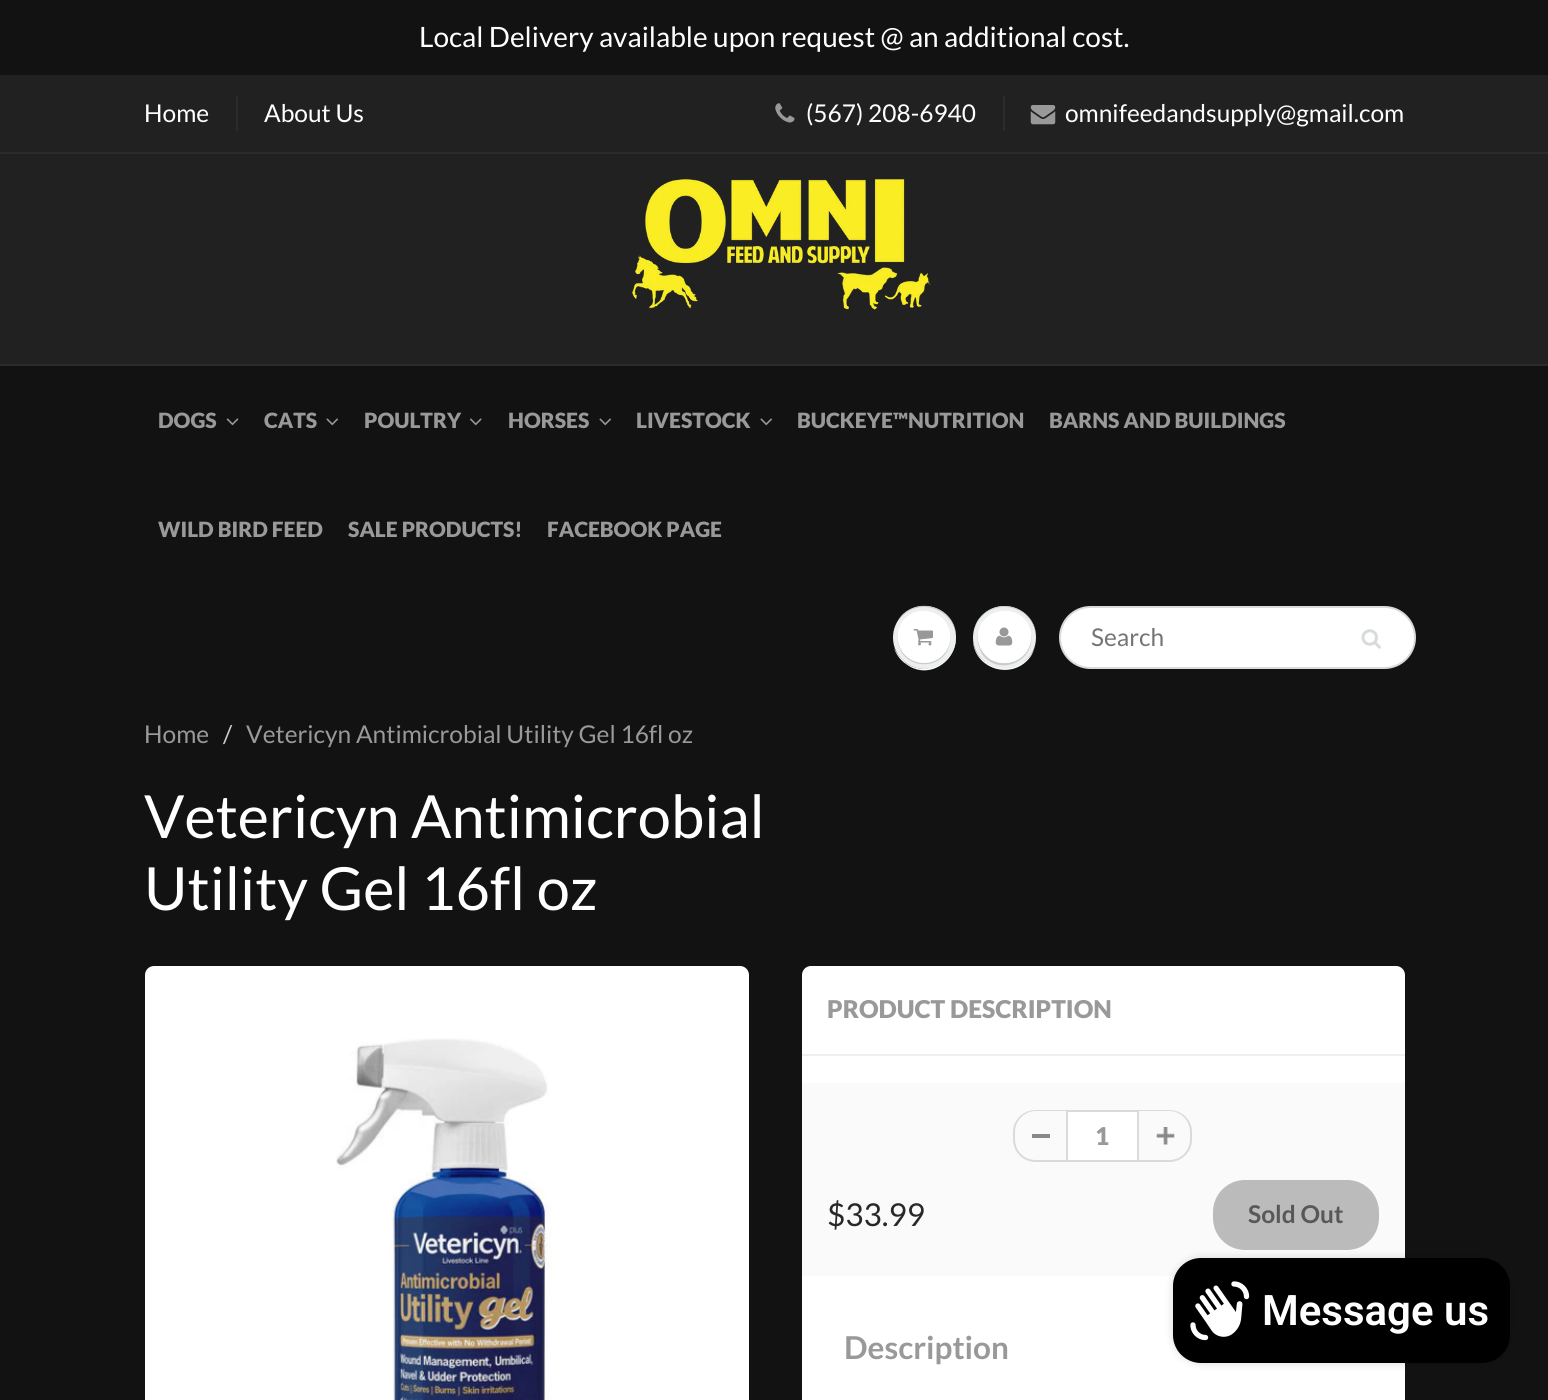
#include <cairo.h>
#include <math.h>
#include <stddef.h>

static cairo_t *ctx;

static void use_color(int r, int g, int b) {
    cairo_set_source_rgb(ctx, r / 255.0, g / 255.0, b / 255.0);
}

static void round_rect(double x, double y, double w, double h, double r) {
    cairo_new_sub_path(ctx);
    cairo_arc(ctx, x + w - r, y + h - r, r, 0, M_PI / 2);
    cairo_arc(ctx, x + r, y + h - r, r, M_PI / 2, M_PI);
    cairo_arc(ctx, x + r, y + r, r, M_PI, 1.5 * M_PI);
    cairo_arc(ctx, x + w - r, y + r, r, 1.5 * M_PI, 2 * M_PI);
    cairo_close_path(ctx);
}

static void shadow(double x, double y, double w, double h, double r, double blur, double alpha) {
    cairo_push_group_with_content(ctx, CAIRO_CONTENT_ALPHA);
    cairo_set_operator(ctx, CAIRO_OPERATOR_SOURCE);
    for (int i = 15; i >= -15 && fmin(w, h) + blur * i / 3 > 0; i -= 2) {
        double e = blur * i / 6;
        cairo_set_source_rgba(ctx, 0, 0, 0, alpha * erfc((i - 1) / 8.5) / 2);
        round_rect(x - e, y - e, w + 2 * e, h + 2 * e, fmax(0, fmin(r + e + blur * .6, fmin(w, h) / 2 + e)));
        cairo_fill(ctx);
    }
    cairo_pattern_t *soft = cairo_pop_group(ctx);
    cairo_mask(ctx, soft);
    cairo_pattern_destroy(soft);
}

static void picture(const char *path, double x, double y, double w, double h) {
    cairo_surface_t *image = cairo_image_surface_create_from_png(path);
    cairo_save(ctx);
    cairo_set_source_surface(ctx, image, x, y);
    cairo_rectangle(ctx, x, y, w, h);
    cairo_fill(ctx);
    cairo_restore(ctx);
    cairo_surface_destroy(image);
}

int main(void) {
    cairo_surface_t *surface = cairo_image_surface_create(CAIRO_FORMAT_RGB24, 1548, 1400);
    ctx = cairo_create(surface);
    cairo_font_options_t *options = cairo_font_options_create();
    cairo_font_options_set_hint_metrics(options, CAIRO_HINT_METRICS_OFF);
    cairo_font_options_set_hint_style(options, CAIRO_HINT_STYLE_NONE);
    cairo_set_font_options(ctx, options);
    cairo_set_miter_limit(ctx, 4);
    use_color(18, 18, 18);
    cairo_paint(ctx);
    cairo_select_font_face(ctx, "Lato", CAIRO_FONT_SLANT_NORMAL, CAIRO_FONT_WEIGHT_NORMAL);
    cairo_set_font_size(ctx, 28);
    use_color(255, 255, 255);
    cairo_move_to(ctx, 419, 47);
    cairo_show_text(ctx, "Local Delivery available upon request @ an additional cost.");
    use_color(33, 33, 33);
    cairo_rectangle(ctx, 0, 75, 1548, 77);
    cairo_fill(ctx);
    cairo_set_font_size(ctx, 24.5);
    use_color(255, 255, 255);
    cairo_move_to(ctx, 144, 122);
    cairo_show_text(ctx, "Home");
    use_color(43, 43, 43);
    cairo_rectangle(ctx, 236, 96, 2, 35);
    cairo_fill(ctx);
    use_color(255, 255, 255);
    cairo_move_to(ctx, 264, 122);
    cairo_show_text(ctx, "About Us");
    picture("img1.png", 775, 103, 20, 20);
    cairo_move_to(ctx, 806, 122);
    cairo_show_text(ctx, "(567) 208-6940");
    use_color(43, 43, 43);
    cairo_rectangle(ctx, 1003, 96, 2, 35);
    cairo_fill(ctx);
    picture("img2.png", 1030, 105, 26, 20);
    use_color(255, 255, 255);
    cairo_move_to(ctx, 1065, 122);
    cairo_show_text(ctx, "omnifeedandsupply@gmail.com");
    use_color(33, 33, 33);
    cairo_rectangle(ctx, 0, 154, 1548, 210);
    cairo_fill(ctx);
    use_color(43, 43, 43);
    cairo_rectangle(ctx, 0, 152, 1548, 2);
    cairo_fill(ctx);
    picture("img3.png", 632, 179, 299, 131);
    cairo_rectangle(ctx, 0, 364, 1548, 2);
    cairo_fill(ctx);
    cairo_select_font_face(ctx, "Lato Black", CAIRO_FONT_SLANT_NORMAL, CAIRO_FONT_WEIGHT_NORMAL);
    cairo_set_font_size(ctx, 21);
    use_color(153, 153, 153);
    cairo_move_to(ctx, 158, 428);
    cairo_show_text(ctx, "DOGS");
    picture("img4.png", 226, 418, 13, 8);
    cairo_move_to(ctx, 264, 428);
    cairo_show_text(ctx, "CATS");
    picture("img5.png", 326, 418, 12, 8);
    cairo_move_to(ctx, 364, 428);
    cairo_show_text(ctx, "POULTRY");
    picture("img6.png", 470, 418, 12, 8);
    cairo_move_to(ctx, 508, 428);
    cairo_show_text(ctx, "HORSES");
    picture("img5.png", 599, 418, 12, 8);
    cairo_move_to(ctx, 636, 428);
    cairo_show_text(ctx, "LIVESTOCK");
    picture("img5.png", 760, 418, 12, 8);
    cairo_move_to(ctx, 797, 428);
    cairo_show_text(ctx, "BUCKEYE™NUTRITION");
    cairo_move_to(ctx, 1049, 428);
    cairo_show_text(ctx, "BARNS AND BUILDINGS");
    cairo_move_to(ctx, 158, 537);
    cairo_show_text(ctx, "WILD BIRD FEED");
    cairo_move_to(ctx, 348, 537);
    cairo_show_text(ctx, "SALE PRODUCTS!");
    cairo_move_to(ctx, 547, 537);
    cairo_show_text(ctx, "FACEBOOK PAGE");
    use_color(255, 255, 255);
    cairo_new_path(ctx);
    cairo_move_to(ctx, 894, 648);
    cairo_curve_to(ctx, 896, 654, 900, 660, 906, 664);
    cairo_curve_to(ctx, 931, 683, 964, 656, 954, 628);
    cairo_curve_to(ctx, 963, 656, 930, 680, 906, 663);
    cairo_curve_to(ctx, 901, 659, 897, 654, 894, 648);
    cairo_close_path(ctx);
    cairo_fill(ctx);
    use_color(237, 239, 239);
    cairo_arc(ctx, 924.5, 637.5, 31.5, 0, 2 * M_PI);
    cairo_fill(ctx);
    use_color(201, 203, 203);
    cairo_new_path(ctx);
    cairo_move_to(ctx, 924, 607);
    cairo_curve_to(ctx, 941, 607, 956, 621, 956, 638);
    cairo_curve_to(ctx, 957, 606, 915, 594, 898, 620);
    cairo_curve_to(ctx, 904, 612, 914, 607, 924, 607);
    cairo_close_path(ctx);
    cairo_move_to(ctx, 898, 641);
    cairo_curve_to(ctx, 901, 672, 947, 672, 950, 641);
    cairo_curve_to(ctx, 945, 670, 903, 670, 898, 641);
    cairo_close_path(ctx);
    cairo_fill(ctx);
    use_color(255, 255, 255);
    cairo_arc(ctx, 924, 637, 26, 0, 2 * M_PI);
    cairo_fill(ctx);
    cairo_new_path(ctx);
    cairo_move_to(ctx, 924, 612);
    cairo_curve_to(ctx, 938, 612, 949, 623, 950, 638);
    cairo_curve_to(ctx, 951, 612, 917, 601, 902, 622);
    cairo_curve_to(ctx, 899, 627, 898, 633, 898, 638);
    cairo_curve_to(ctx, 899, 623, 910, 612, 924, 612);
    cairo_close_path(ctx);
    cairo_fill(ctx);
    picture("img7.png", 913, 629, 20, 17);
    cairo_new_path(ctx);
    cairo_move_to(ctx, 973, 638);
    cairo_curve_to(ctx, 972, 669, 1013, 682, 1031, 656);
    cairo_curve_to(ctx, 1034, 651, 1036, 644, 1036, 638);
    cairo_curve_to(ctx, 1036, 655, 1022, 668, 1004, 668);
    cairo_curve_to(ctx, 987, 668, 973, 655, 973, 638);
    cairo_close_path(ctx);
    cairo_fill(ctx);
    use_color(237, 239, 239);
    cairo_arc(ctx, 1004.5, 637.5, 31.5, 0, 2 * M_PI);
    cairo_fill(ctx);
    use_color(201, 203, 203);
    cairo_new_path(ctx);
    cairo_move_to(ctx, 1004, 607);
    cairo_curve_to(ctx, 1022, 607, 1036, 621, 1036, 638);
    cairo_curve_to(ctx, 1037, 607, 996, 594, 978, 620);
    cairo_curve_to(ctx, 975, 625, 973, 632, 973, 638);
    cairo_curve_to(ctx, 973, 621, 987, 607, 1004, 607);
    cairo_close_path(ctx);
    cairo_fill(ctx);
    cairo_new_path(ctx);
    cairo_move_to(ctx, 978, 635);
    cairo_curve_to(ctx, 977, 641, 979, 648, 982, 654);
    cairo_curve_to(ctx, 998, 677, 1035, 662, 1031, 635);
    cairo_curve_to(ctx, 1033, 661, 998, 674, 983, 652);
    cairo_curve_to(ctx, 979, 647, 978, 641, 978, 635);
    cairo_close_path(ctx);
    cairo_fill(ctx);
    use_color(255, 255, 255);
    round_rect(978, 611, 53, 52, 26);
    cairo_fill(ctx);
    cairo_new_path(ctx);
    cairo_move_to(ctx, 1004, 612);
    cairo_curve_to(ctx, 1019, 612, 1030, 623, 1031, 638);
    cairo_curve_to(ctx, 1031, 633, 1030, 627, 1027, 622);
    cairo_curve_to(ctx, 1012, 601, 977, 612, 978, 638);
    cairo_curve_to(ctx, 979, 623, 990, 612, 1004, 612);
    cairo_close_path(ctx);
    cairo_fill(ctx);
    picture("img8.png", 995, 627, 18, 19);
    round_rect(1060, 607, 355, 61, 30.5);
    cairo_fill_preserve(ctx);
    use_color(215, 219, 219);
    cairo_stroke(ctx);
    cairo_select_font_face(ctx, "Lato", CAIRO_FONT_SLANT_NORMAL, CAIRO_FONT_WEIGHT_NORMAL);
    cairo_set_font_size(ctx, 24.5);
    use_color(117, 117, 117);
    cairo_move_to(ctx, 1091, 646);
    cairo_show_text(ctx, "Search");
    picture("img9.png", 1361, 629, 20, 20);
    use_color(153, 153, 153);
    cairo_move_to(ctx, 144, 743);
    cairo_show_text(ctx, "Home");
    use_color(204, 204, 204);
    cairo_move_to(ctx, 223, 743);
    cairo_show_text(ctx, "/");
    use_color(153, 153, 153);
    cairo_move_to(ctx, 246, 743);
    cairo_show_text(ctx, "Vetericyn Antimicrobial Utility Gel 16fl oz");
    cairo_set_font_size(ctx, 59.5);
    use_color(255, 255, 255);
    cairo_move_to(ctx, 144, 838);
    cairo_show_text(ctx, "Vetericyn Antimicrobial");
    cairo_move_to(ctx, 144, 910);
    cairo_show_text(ctx, "Utility Gel 16fl oz");
    round_rect(145, 966, 604, 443, 9);
    cairo_fill(ctx);
    picture("img10.png", 336, 1038, 216, 362);
    round_rect(802, 966, 603, 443, 9);
    cairo_fill(ctx);
    use_color(239, 239, 239);
    cairo_rectangle(ctx, 802, 1054, 603, 2);
    cairo_fill(ctx);
    cairo_select_font_face(ctx, "Lato Black", CAIRO_FONT_SLANT_NORMAL, CAIRO_FONT_WEIGHT_NORMAL);
    cairo_set_font_size(ctx, 24.5);
    use_color(153, 153, 153);
    cairo_move_to(ctx, 827, 1018);
    cairo_show_text(ctx, "PRODUCT DESCRIPTION");
    use_color(250, 250, 250);
    cairo_rectangle(ctx, 802, 1083, 603, 193);
    cairo_fill(ctx);
    use_color(137, 137, 137);
    cairo_rectangle(ctx, 1032, 1134, 18, 4);
    cairo_fill(ctx);
    use_color(215, 219, 219);
    cairo_set_fill_rule(ctx, CAIRO_FILL_RULE_EVEN_ODD);
    cairo_new_path(ctx);
    cairo_move_to(ctx, 1036, 1110);
    cairo_line_to(ctx, 1066, 1110);
    cairo_line_to(ctx, 1066, 1162);
    cairo_line_to(ctx, 1036, 1162);
    cairo_curve_to(ctx, 1023, 1162, 1013, 1152, 1013, 1139);
    cairo_line_to(ctx, 1013, 1132);
    cairo_curve_to(ctx, 1013, 1120, 1023, 1110, 1036, 1110);
    cairo_close_path(ctx);
    cairo_move_to(ctx, 1036, 1111);
    cairo_line_to(ctx, 1066, 1111);
    cairo_line_to(ctx, 1066, 1160);
    cairo_line_to(ctx, 1036, 1160);
    cairo_curve_to(ctx, 1024, 1160, 1015, 1151, 1015, 1139);
    cairo_line_to(ctx, 1015, 1132);
    cairo_curve_to(ctx, 1015, 1121, 1024, 1111, 1036, 1111);
    cairo_close_path(ctx);
    cairo_fill(ctx);
    use_color(255, 255, 255);
    cairo_rectangle(ctx, 1067, 1111, 71, 50);
    cairo_fill_preserve(ctx);
    use_color(215, 219, 219);
    cairo_stroke(ctx);
    use_color(153, 153, 153);
    cairo_move_to(ctx, 1095, 1145);
    cairo_show_text(ctx, "1");
    picture("img11.png", 1156, 1127, 19, 18);
    use_color(215, 219, 219);
    cairo_new_path(ctx);
    cairo_move_to(ctx, 1139, 1110);
    cairo_line_to(ctx, 1169, 1110);
    cairo_curve_to(ctx, 1182, 1110, 1192, 1120, 1192, 1132);
    cairo_line_to(ctx, 1192, 1139);
    cairo_curve_to(ctx, 1192, 1152, 1182, 1162, 1169, 1162);
    cairo_line_to(ctx, 1139, 1162);
    cairo_close_path(ctx);
    cairo_move_to(ctx, 1139, 1111);
    cairo_line_to(ctx, 1169, 1111);
    cairo_curve_to(ctx, 1181, 1111, 1190, 1121, 1190, 1132);
    cairo_line_to(ctx, 1190, 1139);
    cairo_curve_to(ctx, 1190, 1151, 1181, 1160, 1169, 1160);
    cairo_line_to(ctx, 1139, 1160);
    cairo_close_path(ctx);
    cairo_fill(ctx);
    cairo_select_font_face(ctx, "Lato", CAIRO_FONT_SLANT_NORMAL, CAIRO_FONT_WEIGHT_NORMAL);
    cairo_set_font_size(ctx, 31.5);
    use_color(40, 40, 39);
    cairo_move_to(ctx, 827, 1226);
    cairo_show_text(ctx, "$33.99");
    use_color(187, 187, 187);
    round_rect(1213, 1180, 166, 70, 32);
    cairo_fill(ctx);
    cairo_select_font_face(ctx, "Lato", CAIRO_FONT_SLANT_NORMAL, CAIRO_FONT_WEIGHT_BOLD);
    cairo_set_font_size(ctx, 24.5);
    use_color(88, 88, 88);
    cairo_move_to(ctx, 1248, 1223);
    cairo_show_text(ctx, "Sold Out");
    cairo_set_font_size(ctx, 31.5);
    use_color(153, 153, 153);
    cairo_move_to(ctx, 844, 1359);
    cairo_show_text(ctx, "Description");
    use_color(0, 0, 0);
    shadow(1173, 1258, 337, 105, 28, 4.5, 0.15);
    use_color(0, 0, 0);
    round_rect(1173, 1258, 337, 105, 28);
    cairo_fill(ctx);
    picture("img12.png", 1190, 1281, 60, 60);
    cairo_select_font_face(ctx, "Roboto SemiBold", CAIRO_FONT_SLANT_NORMAL, CAIRO_FONT_WEIGHT_NORMAL);
    cairo_set_font_size(ctx, 42);
    use_color(255, 255, 255);
    cairo_move_to(ctx, 1262, 1325);
    cairo_show_text(ctx, "Message us");
    cairo_surface_write_to_png(surface, "result.png");
    cairo_font_options_destroy(options);
    cairo_destroy(ctx);
    cairo_surface_destroy(surface);
    return 0;
}
